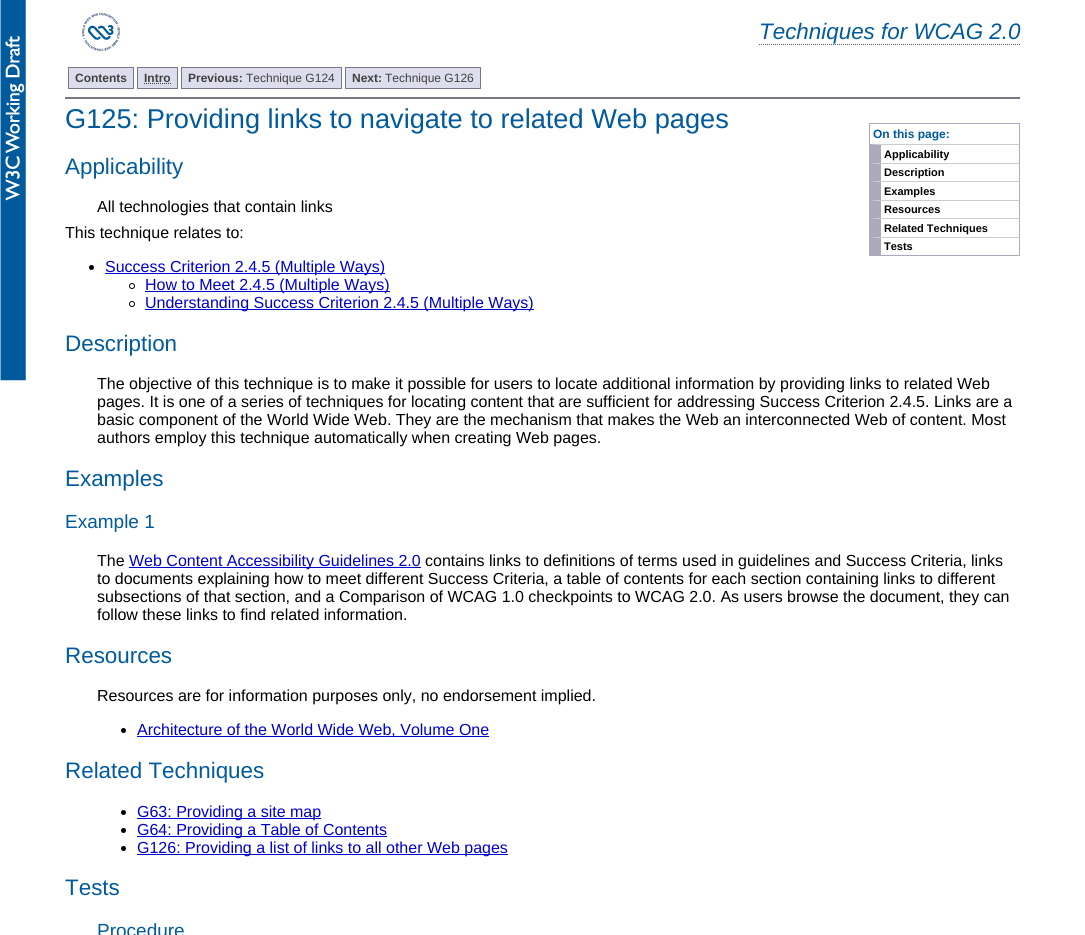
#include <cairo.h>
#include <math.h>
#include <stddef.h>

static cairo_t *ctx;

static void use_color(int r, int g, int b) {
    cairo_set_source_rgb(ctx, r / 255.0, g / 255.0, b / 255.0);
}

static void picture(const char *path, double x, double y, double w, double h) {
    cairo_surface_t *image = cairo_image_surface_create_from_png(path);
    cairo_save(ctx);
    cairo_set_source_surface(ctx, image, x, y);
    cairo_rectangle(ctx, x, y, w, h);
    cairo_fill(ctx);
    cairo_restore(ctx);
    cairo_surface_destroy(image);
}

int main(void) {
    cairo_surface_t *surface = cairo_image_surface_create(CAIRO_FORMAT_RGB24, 1085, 935);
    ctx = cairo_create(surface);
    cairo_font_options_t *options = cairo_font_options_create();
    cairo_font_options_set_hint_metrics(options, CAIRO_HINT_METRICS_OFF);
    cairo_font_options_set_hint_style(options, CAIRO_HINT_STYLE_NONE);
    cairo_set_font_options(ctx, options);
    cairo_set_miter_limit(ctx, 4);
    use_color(255, 255, 255);
    cairo_paint(ctx);
    picture("img1.png", 0, 0, 26, 381);
    picture("img2.png", 82, 13, 38, 38);
    cairo_select_font_face(ctx, "Liberation Sans", CAIRO_FONT_SLANT_ITALIC, CAIRO_FONT_WEIGHT_NORMAL);
    cairo_set_font_size(ctx, 22.4);
    use_color(0, 90, 156);
    cairo_move_to(ctx, 759, 39);
    cairo_show_text(ctx, "Techniques for WCAG 2.0");
    cairo_new_path(ctx);
    cairo_move_to(ctx, 759, 44.5);
    cairo_line_to(ctx, 1020, 44.5);
    use_color(88, 88, 88);
    cairo_set_line_width(ctx, 1);
    cairo_set_dash(ctx, (double[]){1, 1}, 2, 0);
    cairo_stroke(ctx);
    use_color(119, 119, 136);
    cairo_rectangle(ctx, 65, 97, 955, 2);
    cairo_fill(ctx);
    use_color(221, 221, 238);
    cairo_rectangle(ctx, 68.5, 67.5, 65, 21);
    cairo_fill_preserve(ctx);
    use_color(119, 119, 136);
    cairo_set_dash(ctx, NULL, 0, 0);
    cairo_stroke(ctx);
    cairo_select_font_face(ctx, "Liberation Sans", CAIRO_FONT_SLANT_NORMAL, CAIRO_FONT_WEIGHT_BOLD);
    cairo_set_font_size(ctx, 12);
    use_color(64, 64, 64);
    cairo_move_to(ctx, 75, 82);
    cairo_show_text(ctx, "Contents");
    use_color(221, 221, 238);
    cairo_rectangle(ctx, 137.5, 67.5, 40, 21);
    cairo_fill_preserve(ctx);
    use_color(119, 119, 136);
    cairo_stroke(ctx);
    use_color(64, 64, 64);
    cairo_move_to(ctx, 144, 82);
    cairo_show_text(ctx, "Intro");
    cairo_new_path(ctx);
    cairo_move_to(ctx, 144, 85.5);
    cairo_line_to(ctx, 171, 85.5);
    use_color(204, 204, 204);
    cairo_set_dash(ctx, (double[]){1, 1}, 2, 0);
    cairo_stroke(ctx);
    cairo_new_path(ctx);
    cairo_move_to(ctx, 144, 83.5);
    cairo_line_to(ctx, 171, 83.5);
    use_color(64, 64, 64);
    cairo_stroke(ctx);
    use_color(221, 221, 238);
    cairo_rectangle(ctx, 181.5, 67.5, 160, 21);
    cairo_fill_preserve(ctx);
    use_color(119, 119, 136);
    cairo_set_dash(ctx, NULL, 0, 0);
    cairo_stroke(ctx);
    use_color(64, 64, 64);
    cairo_move_to(ctx, 188, 82);
    cairo_show_text(ctx, "Previous:");
    cairo_select_font_face(ctx, "Liberation Sans", CAIRO_FONT_SLANT_NORMAL, CAIRO_FONT_WEIGHT_NORMAL);
    cairo_move_to(ctx, 246, 82);
    cairo_show_text(ctx, "Technique G124");
    use_color(221, 221, 238);
    cairo_rectangle(ctx, 345.5, 67.5, 135, 21);
    cairo_fill_preserve(ctx);
    use_color(119, 119, 136);
    cairo_stroke(ctx);
    cairo_select_font_face(ctx, "Liberation Sans", CAIRO_FONT_SLANT_NORMAL, CAIRO_FONT_WEIGHT_BOLD);
    use_color(64, 64, 64);
    cairo_move_to(ctx, 352, 82);
    cairo_show_text(ctx, "Next:");
    cairo_select_font_face(ctx, "Liberation Sans", CAIRO_FONT_SLANT_NORMAL, CAIRO_FONT_WEIGHT_NORMAL);
    cairo_move_to(ctx, 385, 82);
    cairo_show_text(ctx, "Technique G126");
    cairo_set_font_size(ctx, 27.2);
    use_color(0, 90, 156);
    cairo_move_to(ctx, 65, 128);
    cairo_show_text(ctx, "G125: Providing links to navigate to related Web pages");
    cairo_set_font_size(ctx, 22.4);
    cairo_move_to(ctx, 65, 174);
    cairo_show_text(ctx, "Applicability");
    cairo_set_font_size(ctx, 16);
    use_color(0, 0, 0);
    cairo_move_to(ctx, 97, 212);
    cairo_show_text(ctx, "All technologies that contain links");
    cairo_rectangle(ctx, 869.5, 123.5, 150, 132);
    use_color(170, 170, 187);
    cairo_stroke(ctx);
    cairo_select_font_face(ctx, "Liberation Sans", CAIRO_FONT_SLANT_NORMAL, CAIRO_FONT_WEIGHT_BOLD);
    cairo_set_font_size(ctx, 12);
    use_color(0, 90, 156);
    cairo_move_to(ctx, 873, 138);
    cairo_show_text(ctx, "On this page:");
    use_color(204, 204, 204);
    cairo_new_path(ctx);
    cairo_move_to(ctx, 870, 144);
    cairo_line_to(ctx, 1019, 144);
    cairo_line_to(ctx, 1019, 145);
    cairo_line_to(ctx, 881, 145);
    cairo_close_path(ctx);
    cairo_fill(ctx);
    use_color(170, 170, 187);
    cairo_new_path(ctx);
    cairo_move_to(ctx, 870, 163);
    cairo_line_to(ctx, 870, 144);
    cairo_line_to(ctx, 881, 145);
    cairo_line_to(ctx, 881, 163);
    cairo_close_path(ctx);
    cairo_fill(ctx);
    cairo_set_font_size(ctx, 11);
    use_color(0, 0, 0);
    cairo_move_to(ctx, 884, 158);
    cairo_show_text(ctx, "Applicability");
    use_color(204, 204, 204);
    cairo_new_path(ctx);
    cairo_move_to(ctx, 870, 163);
    cairo_line_to(ctx, 1019, 163);
    cairo_line_to(ctx, 1019, 164);
    cairo_line_to(ctx, 881, 164);
    cairo_close_path(ctx);
    cairo_fill(ctx);
    use_color(170, 170, 187);
    cairo_new_path(ctx);
    cairo_move_to(ctx, 870, 181);
    cairo_line_to(ctx, 870, 163);
    cairo_line_to(ctx, 881, 164);
    cairo_line_to(ctx, 881, 181);
    cairo_close_path(ctx);
    cairo_fill(ctx);
    use_color(0, 0, 0);
    cairo_move_to(ctx, 884, 176);
    cairo_show_text(ctx, "Description");
    use_color(204, 204, 204);
    cairo_new_path(ctx);
    cairo_move_to(ctx, 870, 181);
    cairo_line_to(ctx, 1019, 181);
    cairo_line_to(ctx, 1019, 182);
    cairo_line_to(ctx, 881, 182);
    cairo_close_path(ctx);
    cairo_fill(ctx);
    use_color(170, 170, 187);
    cairo_new_path(ctx);
    cairo_move_to(ctx, 870, 200);
    cairo_line_to(ctx, 870, 181);
    cairo_line_to(ctx, 881, 182);
    cairo_line_to(ctx, 881, 200);
    cairo_close_path(ctx);
    cairo_fill(ctx);
    use_color(0, 0, 0);
    cairo_move_to(ctx, 884, 195);
    cairo_show_text(ctx, "Examples");
    use_color(204, 204, 204);
    cairo_new_path(ctx);
    cairo_move_to(ctx, 870, 200);
    cairo_line_to(ctx, 1019, 200);
    cairo_line_to(ctx, 1019, 201);
    cairo_line_to(ctx, 881, 201);
    cairo_close_path(ctx);
    cairo_fill(ctx);
    use_color(170, 170, 187);
    cairo_new_path(ctx);
    cairo_move_to(ctx, 870, 218);
    cairo_line_to(ctx, 870, 200);
    cairo_line_to(ctx, 881, 201);
    cairo_line_to(ctx, 881, 218);
    cairo_close_path(ctx);
    cairo_fill(ctx);
    use_color(0, 0, 0);
    cairo_move_to(ctx, 884, 213);
    cairo_show_text(ctx, "Resources");
    use_color(204, 204, 204);
    cairo_new_path(ctx);
    cairo_move_to(ctx, 870, 218);
    cairo_line_to(ctx, 1019, 218);
    cairo_line_to(ctx, 1019, 219);
    cairo_line_to(ctx, 881, 219);
    cairo_close_path(ctx);
    cairo_fill(ctx);
    use_color(170, 170, 187);
    cairo_new_path(ctx);
    cairo_move_to(ctx, 870, 237);
    cairo_line_to(ctx, 870, 218);
    cairo_line_to(ctx, 881, 219);
    cairo_line_to(ctx, 881, 237);
    cairo_close_path(ctx);
    cairo_fill(ctx);
    use_color(0, 0, 0);
    cairo_move_to(ctx, 884, 232);
    cairo_show_text(ctx, "Related Techniques");
    use_color(204, 204, 204);
    cairo_new_path(ctx);
    cairo_move_to(ctx, 870, 237);
    cairo_line_to(ctx, 1019, 237);
    cairo_line_to(ctx, 1019, 238);
    cairo_line_to(ctx, 881, 238);
    cairo_close_path(ctx);
    cairo_fill(ctx);
    use_color(170, 170, 187);
    cairo_new_path(ctx);
    cairo_move_to(ctx, 870, 255);
    cairo_line_to(ctx, 870, 237);
    cairo_line_to(ctx, 881, 238);
    cairo_line_to(ctx, 881, 255);
    cairo_close_path(ctx);
    cairo_fill(ctx);
    use_color(0, 0, 0);
    cairo_move_to(ctx, 884, 250);
    cairo_show_text(ctx, "Tests");
    cairo_select_font_face(ctx, "Liberation Sans", CAIRO_FONT_SLANT_NORMAL, CAIRO_FONT_WEIGHT_NORMAL);
    cairo_set_font_size(ctx, 16);
    cairo_move_to(ctx, 65, 238);
    cairo_show_text(ctx, "This technique relates to:");
    cairo_new_path(ctx);
    cairo_arc(ctx, 91.5, 267.5, 2.5, 0, 2 * M_PI);
    cairo_fill(ctx);
    use_color(0, 0, 204);
    cairo_rectangle(ctx, 105, 273, 280, 1);
    cairo_fill(ctx);
    cairo_move_to(ctx, 105, 272);
    cairo_show_text(ctx, "Success Criterion 2.4.5 (Multiple Ways)");
    cairo_new_path(ctx);
    cairo_arc(ctx, 132, 286, 2.5, 0, 2 * M_PI);
    use_color(0, 0, 0);
    cairo_stroke(ctx);
    use_color(0, 0, 204);
    cairo_rectangle(ctx, 145, 291, 245, 1);
    cairo_fill(ctx);
    cairo_move_to(ctx, 145, 290);
    cairo_show_text(ctx, "How to Meet 2.4.5 (Multiple Ways)");
    cairo_new_path(ctx);
    cairo_arc(ctx, 132, 304, 2.5, 0, 2 * M_PI);
    use_color(0, 0, 0);
    cairo_stroke(ctx);
    use_color(0, 0, 204);
    cairo_rectangle(ctx, 145, 309, 389, 1);
    cairo_fill(ctx);
    cairo_move_to(ctx, 145, 308);
    cairo_show_text(ctx, "Understanding Success Criterion 2.4.5 (Multiple Ways)");
    cairo_set_font_size(ctx, 22.4);
    use_color(0, 90, 156);
    cairo_move_to(ctx, 65, 351);
    cairo_show_text(ctx, "Description");
    cairo_set_font_size(ctx, 16);
    use_color(0, 0, 0);
    cairo_move_to(ctx, 97, 389);
    cairo_show_text(ctx, "The objective of this technique is to make it possible for users to locate additional information by providing links to related Web");
    cairo_move_to(ctx, 97, 407);
    cairo_show_text(ctx, "pages. It is one of a series of techniques for locating content that are sufficient for addressing Success Criterion 2.4.5. Links are a");
    cairo_move_to(ctx, 97, 425);
    cairo_show_text(ctx, "basic component of the World Wide Web. They are the mechanism that makes the Web an interconnected Web of content. Most");
    cairo_move_to(ctx, 97, 443);
    cairo_show_text(ctx, "authors employ this technique automatically when creating Web pages.");
    cairo_set_font_size(ctx, 22.4);
    use_color(0, 90, 156);
    cairo_move_to(ctx, 65, 486);
    cairo_show_text(ctx, "Examples");
    cairo_set_font_size(ctx, 19);
    cairo_move_to(ctx, 65, 528);
    cairo_show_text(ctx, "Example 1");
    cairo_set_font_size(ctx, 16);
    use_color(0, 0, 0);
    cairo_move_to(ctx, 97, 566);
    cairo_show_text(ctx, "The");
    use_color(0, 0, 204);
    cairo_rectangle(ctx, 129, 567, 292, 1);
    cairo_fill(ctx);
    cairo_move_to(ctx, 129, 566);
    cairo_show_text(ctx, "Web Content Accessibility Guidelines 2.0");
    use_color(0, 0, 0);
    cairo_move_to(ctx, 425, 566);
    cairo_show_text(ctx, "contains links to definitions of terms used in guidelines and Success Criteria, links");
    cairo_move_to(ctx, 97, 584);
    cairo_show_text(ctx, "to documents explaining how to meet different Success Criteria, a table of contents for each section containing links to different");
    cairo_move_to(ctx, 97, 602);
    cairo_show_text(ctx, "subsections of that section, and a Comparison of WCAG 1.0 checkpoints to WCAG 2.0. As users browse the document, they can");
    cairo_move_to(ctx, 97, 620);
    cairo_show_text(ctx, "follow these links to find related information.");
    cairo_set_font_size(ctx, 22.4);
    use_color(0, 90, 156);
    cairo_move_to(ctx, 65, 663);
    cairo_show_text(ctx, "Resources");
    cairo_set_font_size(ctx, 16);
    use_color(0, 0, 0);
    cairo_move_to(ctx, 97, 701);
    cairo_show_text(ctx, "Resources are for information purposes only, no endorsement implied.");
    cairo_new_path(ctx);
    cairo_arc(ctx, 123.5, 730.5, 2.5, 0, 2 * M_PI);
    cairo_fill(ctx);
    use_color(0, 0, 204);
    cairo_rectangle(ctx, 137, 736, 352, 1);
    cairo_fill(ctx);
    cairo_move_to(ctx, 137, 735);
    cairo_show_text(ctx, "Architecture of the World Wide Web, Volume One");
    cairo_set_font_size(ctx, 22.4);
    use_color(0, 90, 156);
    cairo_move_to(ctx, 65, 778);
    cairo_show_text(ctx, "Related Techniques");
    use_color(0, 0, 0);
    cairo_new_path(ctx);
    cairo_arc(ctx, 123.5, 812.5, 2.5, 0, 2 * M_PI);
    cairo_fill(ctx);
    use_color(0, 0, 204);
    cairo_rectangle(ctx, 137, 818, 184, 1);
    cairo_fill(ctx);
    cairo_set_font_size(ctx, 16);
    cairo_move_to(ctx, 137, 817);
    cairo_show_text(ctx, "G63: Providing a site map");
    use_color(0, 0, 0);
    cairo_new_path(ctx);
    cairo_arc(ctx, 123.5, 830.5, 2.5, 0, 2 * M_PI);
    cairo_fill(ctx);
    use_color(0, 0, 204);
    cairo_rectangle(ctx, 137, 836, 250, 1);
    cairo_fill(ctx);
    cairo_move_to(ctx, 137, 835);
    cairo_show_text(ctx, "G64: Providing a Table of Contents");
    use_color(0, 0, 0);
    cairo_new_path(ctx);
    cairo_arc(ctx, 123.5, 848.5, 2.5, 0, 2 * M_PI);
    cairo_fill(ctx);
    use_color(0, 0, 204);
    cairo_rectangle(ctx, 137, 854, 371, 1);
    cairo_fill(ctx);
    cairo_move_to(ctx, 137, 853);
    cairo_show_text(ctx, "G126: Providing a list of links to all other Web pages");
    cairo_set_font_size(ctx, 22.4);
    use_color(0, 90, 156);
    cairo_move_to(ctx, 65, 895);
    cairo_show_text(ctx, "Tests");
    cairo_set_font_size(ctx, 19);
    cairo_move_to(ctx, 97, 937);
    cairo_show_text(ctx, "Procedure");
    cairo_surface_write_to_png(surface, "result.png");
    cairo_font_options_destroy(options);
    cairo_destroy(ctx);
    cairo_surface_destroy(surface);
    return 0;
}
